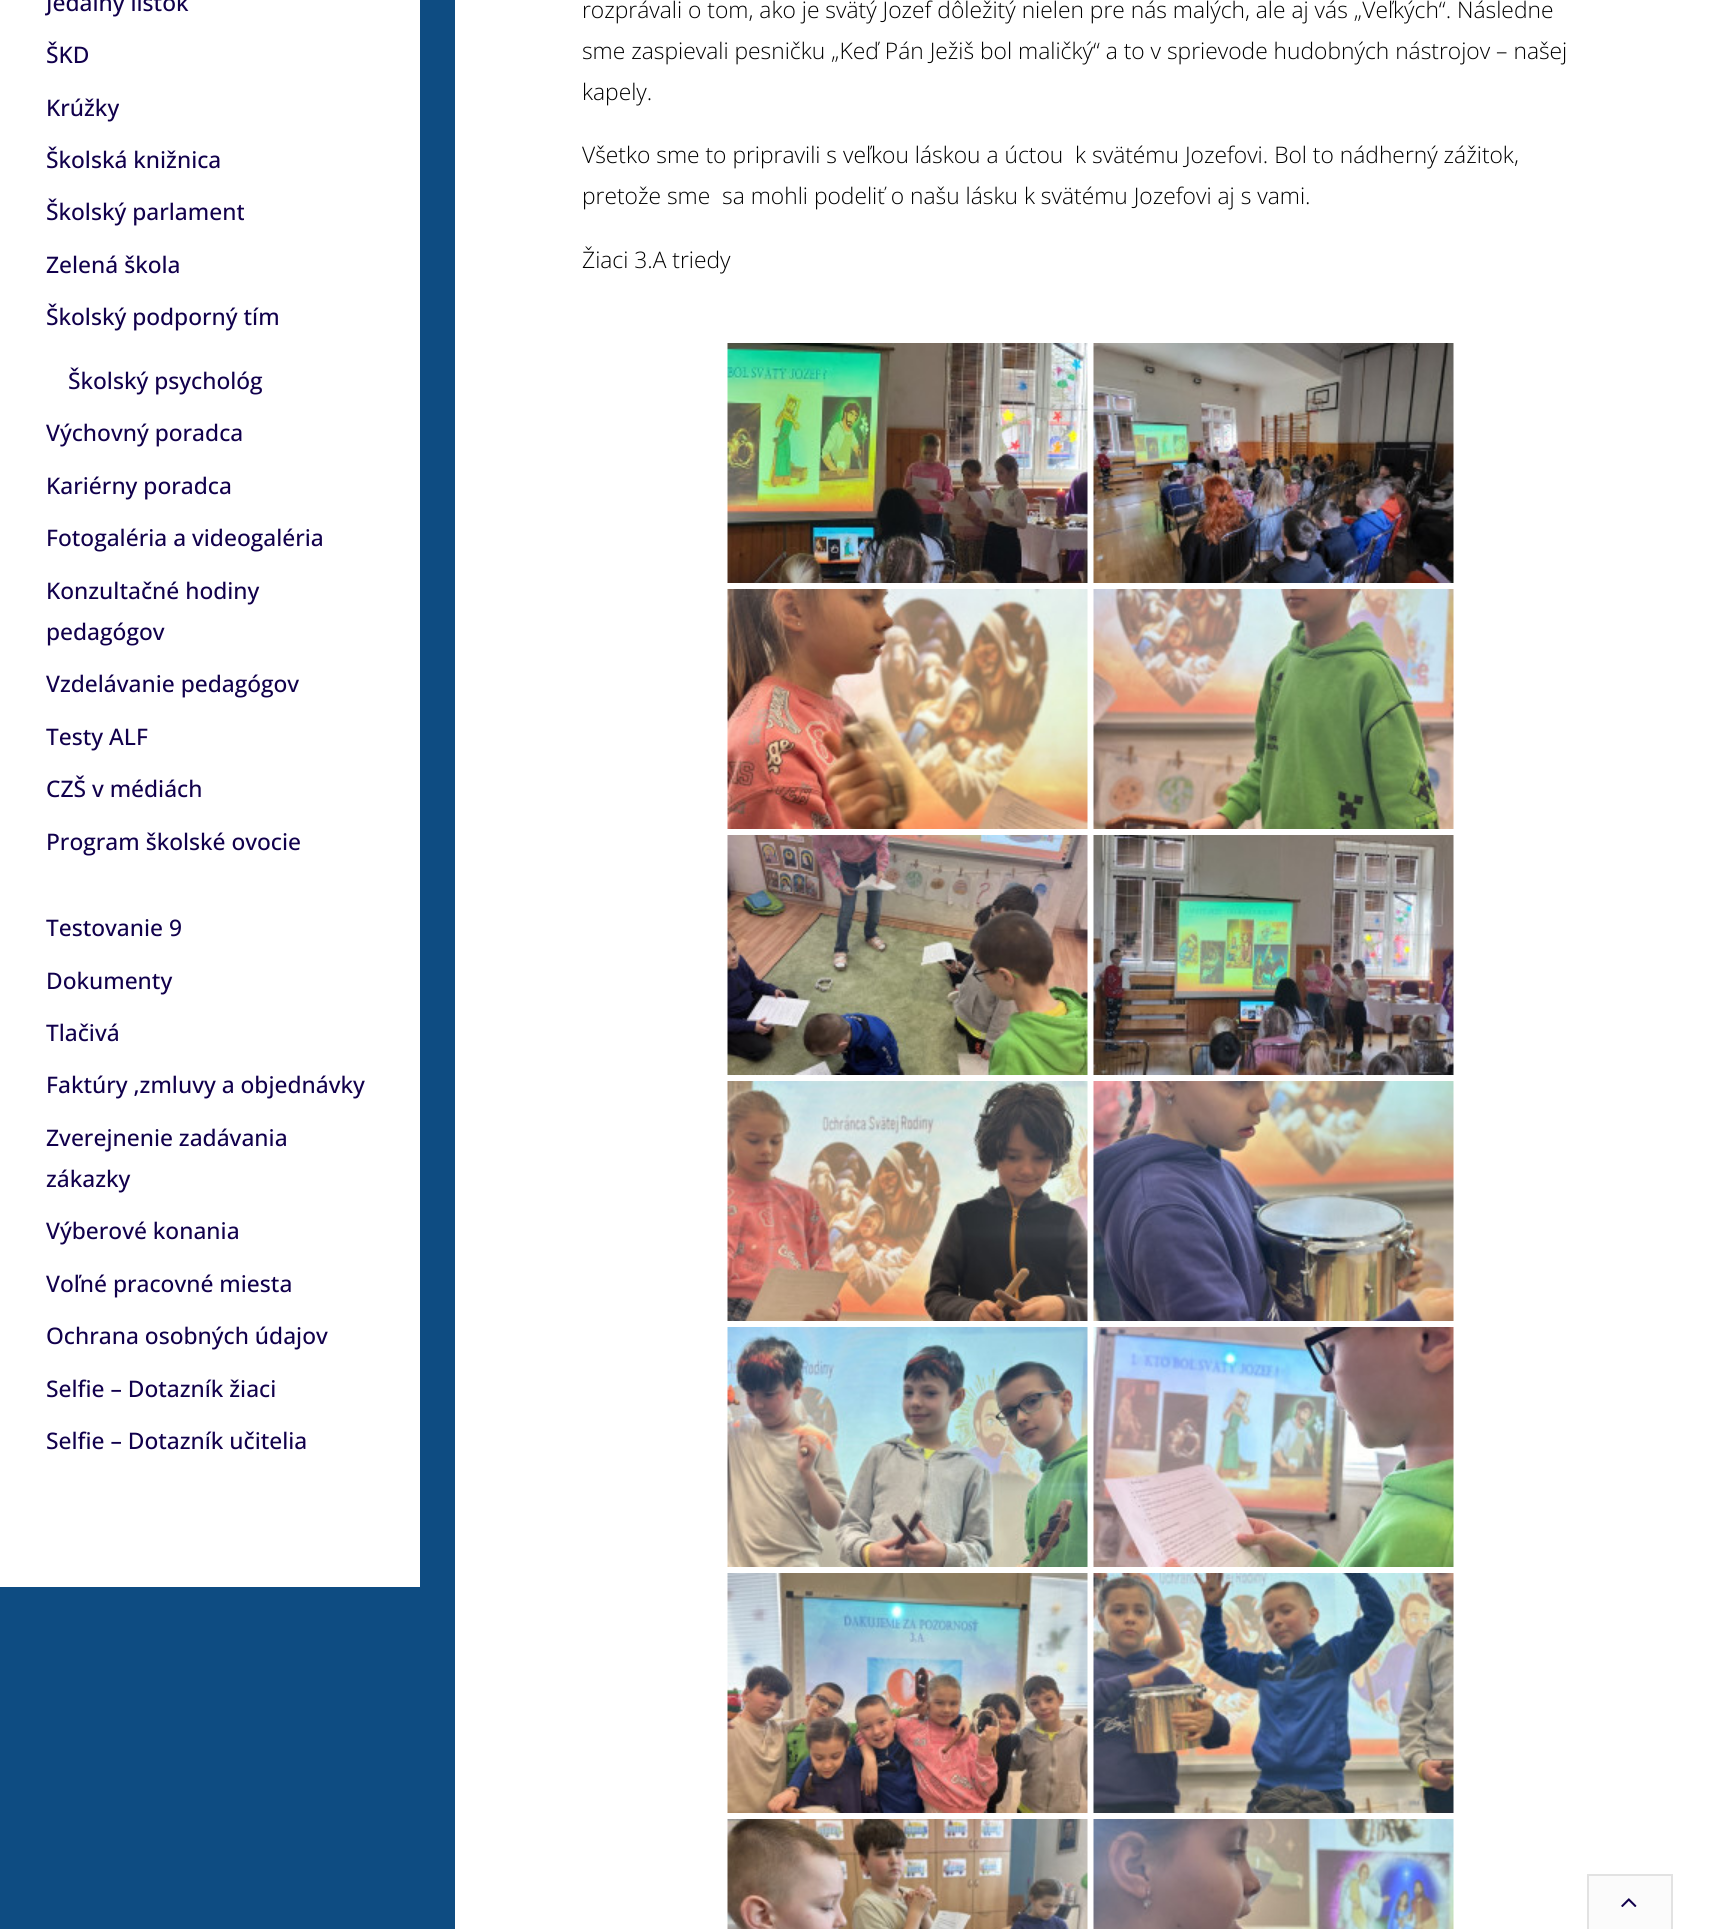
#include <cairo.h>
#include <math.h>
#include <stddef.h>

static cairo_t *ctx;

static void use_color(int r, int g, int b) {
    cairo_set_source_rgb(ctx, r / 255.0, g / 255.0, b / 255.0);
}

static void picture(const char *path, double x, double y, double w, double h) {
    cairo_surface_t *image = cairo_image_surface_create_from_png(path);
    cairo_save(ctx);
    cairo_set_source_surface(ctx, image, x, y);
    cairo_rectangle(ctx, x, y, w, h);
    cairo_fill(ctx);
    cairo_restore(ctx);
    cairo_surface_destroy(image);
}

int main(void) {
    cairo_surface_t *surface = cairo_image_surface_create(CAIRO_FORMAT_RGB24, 1726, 1929);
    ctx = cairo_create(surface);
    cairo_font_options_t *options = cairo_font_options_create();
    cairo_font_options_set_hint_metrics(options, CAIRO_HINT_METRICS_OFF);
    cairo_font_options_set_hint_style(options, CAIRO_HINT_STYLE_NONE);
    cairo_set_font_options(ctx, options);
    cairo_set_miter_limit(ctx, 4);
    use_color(14, 76, 130);
    cairo_paint(ctx);
    use_color(255, 255, 255);
    cairo_rectangle(ctx, 0, 0, 420, 1587);
    cairo_fill(ctx);
    cairo_save(ctx);
    cairo_rectangle(ctx, 45, 0, 330, 873);
    cairo_clip(ctx);
    cairo_select_font_face(ctx, "Open Sans Medium", CAIRO_FONT_SLANT_NORMAL, CAIRO_FONT_WEIGHT_NORMAL);
    cairo_set_font_size(ctx, 22.8);
    use_color(17, 0, 76);
    cairo_move_to(ctx, 46, 11);
    cairo_show_text(ctx, "Jedálny lístok");
    cairo_restore(ctx);
    cairo_select_font_face(ctx, "Open Sans Medium", CAIRO_FONT_SLANT_NORMAL, CAIRO_FONT_WEIGHT_NORMAL);
    cairo_set_font_size(ctx, 22.8);
    use_color(17, 0, 76);
    cairo_move_to(ctx, 46, 63);
    cairo_show_text(ctx, "ŠKD");
    cairo_move_to(ctx, 46, 116);
    cairo_show_text(ctx, "Krúžky");
    cairo_move_to(ctx, 46, 168);
    cairo_show_text(ctx, "Školská knižnica");
    cairo_move_to(ctx, 46, 220);
    cairo_show_text(ctx, "Školský parlament");
    cairo_move_to(ctx, 46, 273);
    cairo_show_text(ctx, "Zelená škola");
    cairo_move_to(ctx, 46, 325);
    cairo_show_text(ctx, "Školský podporný tím");
    cairo_move_to(ctx, 68, 389);
    cairo_show_text(ctx, "Školský psychológ");
    cairo_move_to(ctx, 46, 441);
    cairo_show_text(ctx, "Výchovný poradca");
    cairo_move_to(ctx, 46, 494);
    cairo_show_text(ctx, "Kariérny poradca");
    cairo_move_to(ctx, 46, 546);
    cairo_show_text(ctx, "Fotogaléria a videogaléria");
    cairo_move_to(ctx, 46, 599);
    cairo_show_text(ctx, "Konzultačné hodiny");
    cairo_move_to(ctx, 46, 640);
    cairo_show_text(ctx, "pedagógov");
    cairo_move_to(ctx, 46, 692);
    cairo_show_text(ctx, "Vzdelávanie pedagógov");
    cairo_move_to(ctx, 46, 745);
    cairo_show_text(ctx, "Testy ALF");
    cairo_move_to(ctx, 46, 797);
    cairo_show_text(ctx, "CZŠ v médiách");
    cairo_move_to(ctx, 46, 850);
    cairo_show_text(ctx, "Program školské ovocie");
    cairo_move_to(ctx, 46, 936);
    cairo_show_text(ctx, "Testovanie 9");
    cairo_move_to(ctx, 46, 989);
    cairo_show_text(ctx, "Dokumenty");
    cairo_move_to(ctx, 46, 1041);
    cairo_show_text(ctx, "Tlačivá");
    cairo_move_to(ctx, 46, 1093);
    cairo_show_text(ctx, "Faktúry ,zmluvy a objednávky");
    cairo_move_to(ctx, 46, 1146);
    cairo_show_text(ctx, "Zverejnenie zadávania");
    cairo_move_to(ctx, 46, 1187);
    cairo_show_text(ctx, "zákazky");
    cairo_move_to(ctx, 46, 1239);
    cairo_show_text(ctx, "Výberové konania");
    cairo_move_to(ctx, 46, 1292);
    cairo_show_text(ctx, "Voľné pracovné miesta");
    cairo_move_to(ctx, 46, 1344);
    cairo_show_text(ctx, "Ochrana osobných údajov");
    cairo_move_to(ctx, 46, 1397);
    cairo_show_text(ctx, "Selfie – Dotazník žiaci");
    cairo_move_to(ctx, 46, 1449);
    cairo_show_text(ctx, "Selfie – Dotazník učitelia");
    use_color(255, 255, 255);
    cairo_rectangle(ctx, 455, 0, 1271, 1929);
    cairo_fill(ctx);
    cairo_select_font_face(ctx, "Open Sans Light", CAIRO_FONT_SLANT_NORMAL, CAIRO_FONT_WEIGHT_NORMAL);
    use_color(0, 0, 0);
    cairo_move_to(ctx, 582, 18);
    cairo_show_text(ctx, "rozprávali o tom, ako je svätý Jozef dôležitý nielen pre nás malých, ale aj vás „Veľkých“. Následne");
    cairo_move_to(ctx, 582, 59);
    cairo_show_text(ctx, "sme zaspievali pesničku „Keď Pán Ježiš bol maličký“ a to v sprievode hudobných nástrojov – našej");
    cairo_move_to(ctx, 582, 100);
    cairo_show_text(ctx, "kapely.");
    cairo_move_to(ctx, 582, 163);
    cairo_show_text(ctx, "Všetko sme to pripravili s veľkou láskou a úctou  k svätému Jozefovi. Bol to nádherný zážitok,");
    cairo_move_to(ctx, 582, 204);
    cairo_show_text(ctx, "pretože sme  sa mohli podeliť o našu lásku k svätému Jozefovi aj s vami.");
    cairo_move_to(ctx, 582, 268);
    cairo_show_text(ctx, "Žiaci 3.A triedy");
    picture("img1.png", 727, 343, 361, 240);
    picture("img2.png", 1093, 343, 361, 240);
    picture("img3.png", 727, 589, 361, 240);
    picture("img4.png", 1093, 589, 361, 240);
    picture("img5.png", 727, 835, 361, 240);
    picture("img6.png", 1093, 835, 361, 240);
    picture("img7.png", 727, 1081, 361, 240);
    picture("img8.png", 1093, 1081, 361, 240);
    picture("img9.png", 727, 1327, 361, 240);
    picture("img10.png", 1093, 1327, 361, 240);
    picture("img11.png", 727, 1573, 361, 240);
    picture("img12.png", 1093, 1573, 361, 240);
    picture("img13.png", 727, 1819, 361, 110);
    picture("img14.png", 1093, 1819, 361, 110);
    use_color(251, 251, 251);
    cairo_rectangle(ctx, 1588, 1875, 84, 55);
    cairo_fill_preserve(ctx);
    use_color(226, 226, 226);
    cairo_stroke(ctx);
    picture("img15.png", 1621, 1898, 16, 9);
    cairo_surface_write_to_png(surface, "result.png");
    cairo_font_options_destroy(options);
    cairo_destroy(ctx);
    cairo_surface_destroy(surface);
    return 0;
}
